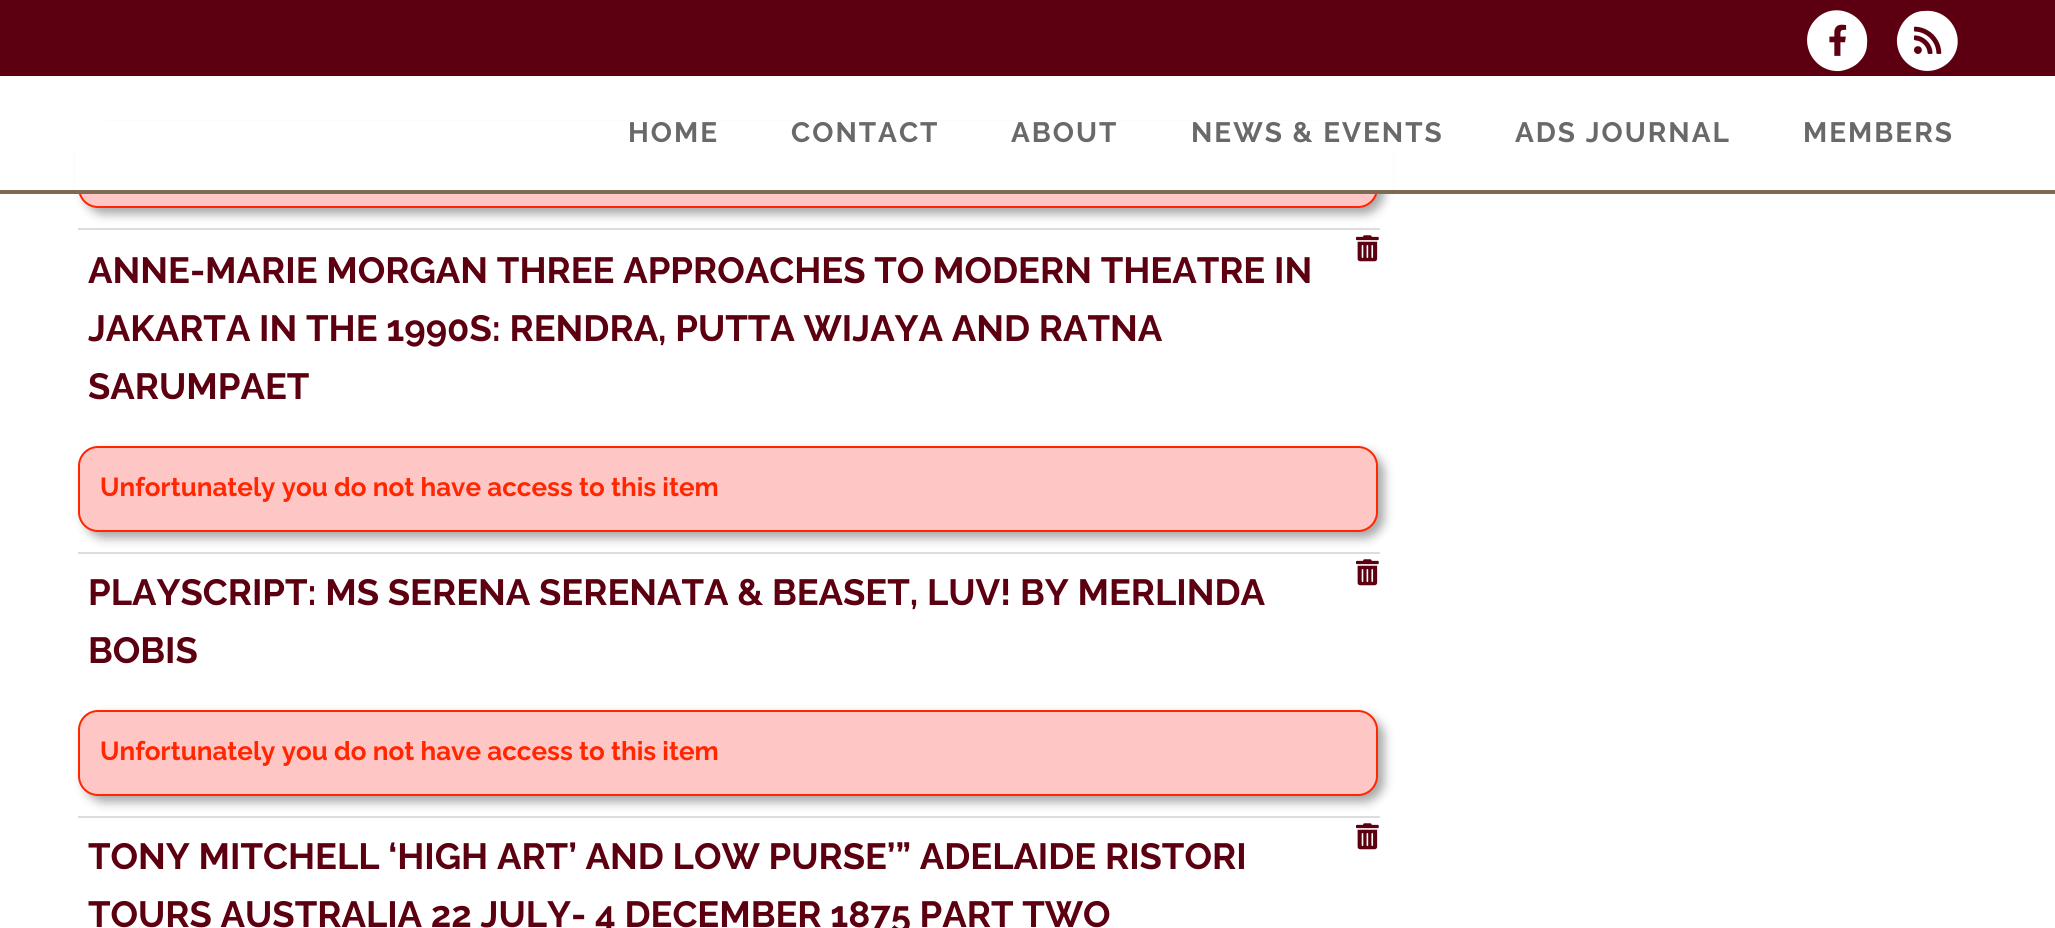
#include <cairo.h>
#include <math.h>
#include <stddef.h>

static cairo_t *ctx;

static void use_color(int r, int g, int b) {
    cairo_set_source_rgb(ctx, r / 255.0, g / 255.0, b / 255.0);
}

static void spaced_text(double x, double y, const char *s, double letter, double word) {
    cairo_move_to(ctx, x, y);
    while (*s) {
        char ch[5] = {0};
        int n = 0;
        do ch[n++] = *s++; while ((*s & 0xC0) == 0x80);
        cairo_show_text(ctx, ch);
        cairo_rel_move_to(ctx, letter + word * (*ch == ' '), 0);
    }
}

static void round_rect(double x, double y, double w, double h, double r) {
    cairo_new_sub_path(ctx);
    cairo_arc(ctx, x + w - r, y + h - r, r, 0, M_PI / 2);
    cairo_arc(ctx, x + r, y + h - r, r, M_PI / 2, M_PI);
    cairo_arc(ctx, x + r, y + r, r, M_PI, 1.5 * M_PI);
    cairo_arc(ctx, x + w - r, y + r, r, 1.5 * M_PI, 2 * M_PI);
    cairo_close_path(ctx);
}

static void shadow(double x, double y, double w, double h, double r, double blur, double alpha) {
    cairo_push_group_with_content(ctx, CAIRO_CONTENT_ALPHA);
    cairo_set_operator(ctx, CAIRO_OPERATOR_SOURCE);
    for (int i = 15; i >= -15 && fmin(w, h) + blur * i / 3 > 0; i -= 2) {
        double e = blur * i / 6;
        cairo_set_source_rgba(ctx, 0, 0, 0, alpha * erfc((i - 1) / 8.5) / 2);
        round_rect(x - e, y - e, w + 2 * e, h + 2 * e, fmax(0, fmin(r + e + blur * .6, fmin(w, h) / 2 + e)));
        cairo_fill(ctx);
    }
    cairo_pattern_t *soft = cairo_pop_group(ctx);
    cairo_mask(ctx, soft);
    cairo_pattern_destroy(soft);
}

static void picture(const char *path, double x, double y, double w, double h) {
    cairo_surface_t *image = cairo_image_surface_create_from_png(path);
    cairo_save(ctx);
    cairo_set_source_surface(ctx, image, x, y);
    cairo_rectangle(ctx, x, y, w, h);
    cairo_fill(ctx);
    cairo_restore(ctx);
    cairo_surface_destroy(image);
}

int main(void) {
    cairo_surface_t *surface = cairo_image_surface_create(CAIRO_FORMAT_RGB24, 2055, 928);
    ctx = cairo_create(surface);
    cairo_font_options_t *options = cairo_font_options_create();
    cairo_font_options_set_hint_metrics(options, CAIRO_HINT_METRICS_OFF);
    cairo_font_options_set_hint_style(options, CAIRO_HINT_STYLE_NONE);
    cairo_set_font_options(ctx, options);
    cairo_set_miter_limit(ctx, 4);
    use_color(255, 255, 255);
    cairo_paint(ctx);
    use_color(92, 0, 17);
    cairo_rectangle(ctx, 0, 0, 2055, 76);
    cairo_fill(ctx);
    use_color(255, 255, 255);
    cairo_new_path(ctx);
    cairo_move_to(ctx, 1816, 19);
    cairo_curve_to(ctx, 1836, -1, 1870, 16, 1867, 44);
    cairo_curve_to(ctx, 1867, 51, 1864, 57, 1859, 62);
    cairo_curve_to(ctx, 1854, 67, 1847, 70, 1840, 71);
    cairo_curve_to(ctx, 1812, 73, 1796, 39, 1816, 19);
    cairo_close_path(ctx);
    cairo_fill(ctx);
    picture("img1.png", 1829, 24, 18, 32);
    cairo_new_path(ctx);
    cairo_move_to(ctx, 1906, 19);
    cairo_curve_to(ctx, 1911, 14, 1917, 11, 1924, 11);
    cairo_curve_to(ctx, 1952, 8, 1969, 42, 1949, 62);
    cairo_curve_to(ctx, 1928, 82, 1895, 66, 1897, 38);
    cairo_curve_to(ctx, 1898, 31, 1901, 24, 1906, 19);
    cairo_close_path(ctx);
    cairo_fill(ctx);
    picture("img2.png", 1914, 26, 28, 28);
    use_color(221, 221, 221);
    cairo_rectangle(ctx, 78, 228, 1302, 2);
    cairo_fill(ctx);
    use_color(0, 0, 0);
    shadow(84, 130, 1300, 84, 20, 5, 0.35);
    use_color(255, 198, 198);
    round_rect(79, 125, 1298, 82, 19);
    cairo_fill_preserve(ctx);
    use_color(255, 38, 0);
    cairo_stroke(ctx);
    use_color(255, 255, 255);
    cairo_rectangle(ctx, 75, 121, 1318, 69);
    cairo_fill(ctx);
    use_color(124, 106, 85);
    cairo_rectangle(ctx, 0, 190, 2055, 4);
    cairo_fill(ctx);
    cairo_select_font_face(ctx, "Raleway", CAIRO_FONT_SLANT_NORMAL, CAIRO_FONT_WEIGHT_BOLD);
    cairo_set_font_size(ctx, 28);
    use_color(105, 105, 105);
    spaced_text(628, 142, "HOME", 2, 0);
    spaced_text(791, 142, "CONTACT", 2, 0);
    spaced_text(1011, 142, "ABOUT", 2, 0);
    spaced_text(1191, 142, "NEWS & EVENTS", 2, 0);
    spaced_text(1515, 142, "ADS JOURNAL", 2, 0);
    spaced_text(1803, 142, "MEMBERS", 2, 0);
    picture("img3.png", 1356, 235, 23, 27);
    cairo_set_font_size(ctx, 36.4);
    use_color(92, 0, 17);
    cairo_move_to(ctx, 88, 283);
    cairo_show_text(ctx, "ANNE-MARIE MORGAN THREE APPROACHES TO MODERN THEATRE IN");
    cairo_move_to(ctx, 88, 341);
    cairo_show_text(ctx, "JAKARTA IN THE 1990S: RENDRA, PUTTA WIJAYA AND RATNA");
    cairo_move_to(ctx, 88, 399);
    cairo_show_text(ctx, "SARUMPAET");
    use_color(221, 221, 221);
    cairo_rectangle(ctx, 78, 552, 1302, 2);
    cairo_fill(ctx);
    use_color(0, 0, 0);
    shadow(84, 452, 1300, 86, 20, 5, 0.35);
    use_color(255, 198, 198);
    round_rect(79, 447, 1298, 84, 19);
    cairo_fill_preserve(ctx);
    use_color(255, 38, 0);
    cairo_stroke(ctx);
    cairo_set_font_size(ctx, 26);
    cairo_move_to(ctx, 100, 496);
    cairo_show_text(ctx, "Unfortunately you do not have access to this item");
    picture("img3.png", 1356, 559, 23, 27);
    cairo_set_font_size(ctx, 36.4);
    use_color(92, 0, 17);
    cairo_move_to(ctx, 88, 605);
    cairo_show_text(ctx, "PLAYSCRIPT: MS SERENA SERENATA & BEASET, LUV! BY MERLINDA");
    cairo_move_to(ctx, 88, 663);
    cairo_show_text(ctx, "BOBIS");
    use_color(221, 221, 221);
    cairo_rectangle(ctx, 78, 816, 1302, 2);
    cairo_fill(ctx);
    use_color(0, 0, 0);
    shadow(84, 716, 1300, 86, 20, 5, 0.35);
    use_color(255, 198, 198);
    round_rect(79, 711, 1298, 84, 19);
    cairo_fill_preserve(ctx);
    use_color(255, 38, 0);
    cairo_stroke(ctx);
    cairo_set_font_size(ctx, 26);
    cairo_move_to(ctx, 100, 760);
    cairo_show_text(ctx, "Unfortunately you do not have access to this item");
    picture("img3.png", 1356, 823, 23, 27);
    cairo_set_font_size(ctx, 36.4);
    use_color(92, 0, 17);
    cairo_move_to(ctx, 88, 869);
    cairo_show_text(ctx, "TONY MITCHELL ‘HIGH ART’ AND LOW PURSE’” ADELAIDE RISTORI");
    cairo_move_to(ctx, 88, 927);
    cairo_show_text(ctx, "TOURS AUSTRALIA 22 JULY- 4 DECEMBER 1875 PART TWO");
    cairo_surface_write_to_png(surface, "result.png");
    cairo_font_options_destroy(options);
    cairo_destroy(ctx);
    cairo_surface_destroy(surface);
    return 0;
}
